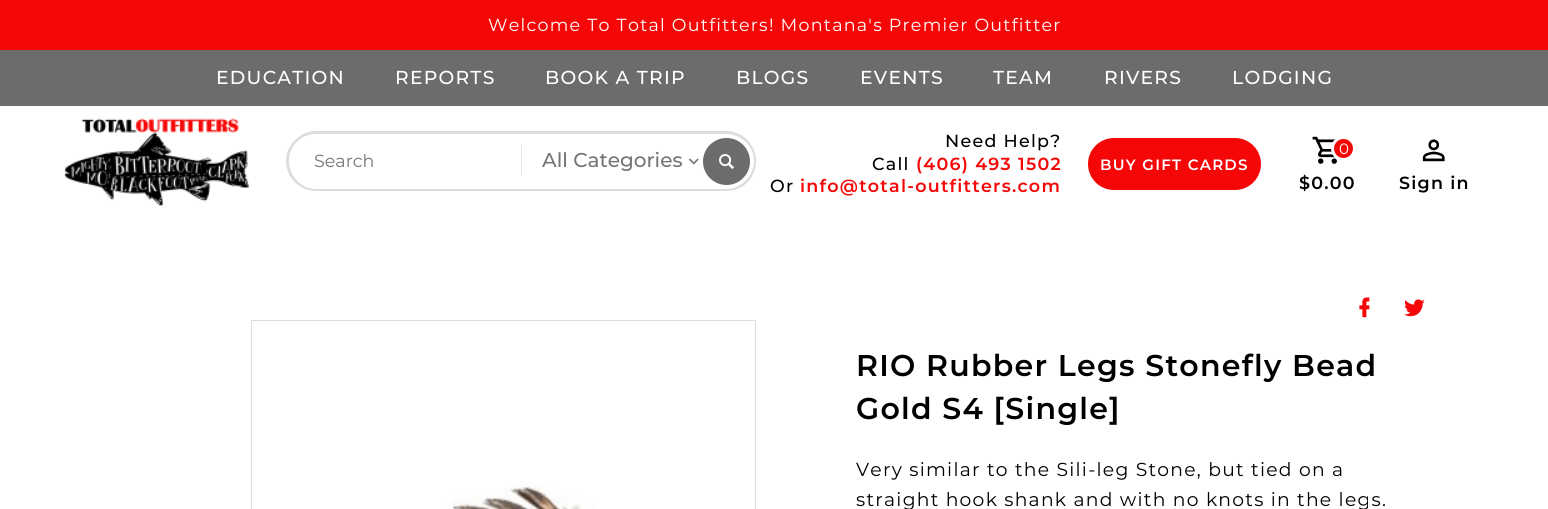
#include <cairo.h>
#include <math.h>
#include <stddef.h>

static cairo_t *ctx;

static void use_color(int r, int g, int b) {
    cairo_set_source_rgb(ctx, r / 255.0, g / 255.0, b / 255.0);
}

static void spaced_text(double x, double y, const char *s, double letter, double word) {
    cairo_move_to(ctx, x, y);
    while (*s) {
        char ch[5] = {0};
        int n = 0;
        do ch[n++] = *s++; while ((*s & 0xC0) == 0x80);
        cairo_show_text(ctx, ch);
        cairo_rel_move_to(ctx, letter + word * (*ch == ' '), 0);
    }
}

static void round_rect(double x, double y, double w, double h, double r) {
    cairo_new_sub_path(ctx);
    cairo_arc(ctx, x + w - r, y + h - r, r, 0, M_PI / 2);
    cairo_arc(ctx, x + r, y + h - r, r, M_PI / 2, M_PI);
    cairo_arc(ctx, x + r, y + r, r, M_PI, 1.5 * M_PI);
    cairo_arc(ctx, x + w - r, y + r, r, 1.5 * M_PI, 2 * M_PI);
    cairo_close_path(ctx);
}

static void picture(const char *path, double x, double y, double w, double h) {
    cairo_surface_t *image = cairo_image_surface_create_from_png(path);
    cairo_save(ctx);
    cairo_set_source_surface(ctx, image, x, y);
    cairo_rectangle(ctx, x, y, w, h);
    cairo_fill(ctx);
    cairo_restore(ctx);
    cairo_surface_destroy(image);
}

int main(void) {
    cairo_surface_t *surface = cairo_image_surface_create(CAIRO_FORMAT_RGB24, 1548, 509);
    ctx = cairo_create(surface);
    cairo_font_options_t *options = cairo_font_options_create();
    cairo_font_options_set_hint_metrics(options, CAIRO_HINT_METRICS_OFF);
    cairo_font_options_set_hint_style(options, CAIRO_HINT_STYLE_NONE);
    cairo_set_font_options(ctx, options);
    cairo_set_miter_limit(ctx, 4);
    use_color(255, 255, 255);
    cairo_paint(ctx);
    use_color(245, 7, 7);
    cairo_rectangle(ctx, 0, 0, 1548, 50);
    cairo_fill(ctx);
    cairo_select_font_face(ctx, "Montserrat", CAIRO_FONT_SLANT_NORMAL, CAIRO_FONT_WEIGHT_NORMAL);
    cairo_set_font_size(ctx, 17.5);
    use_color(255, 255, 255);
    spaced_text(488, 31, "Welcome To Total Outfitters! Montana's Premier Outfitter", 1.25, 0);
    use_color(108, 108, 108);
    cairo_rectangle(ctx, 0, 50, 1548, 56);
    cairo_fill(ctx);
    cairo_select_font_face(ctx, "Montserrat Medium", CAIRO_FONT_SLANT_NORMAL, CAIRO_FONT_WEIGHT_NORMAL);
    cairo_set_font_size(ctx, 18.75);
    use_color(255, 255, 255);
    spaced_text(216, 84, "EDUCATION", 1.25, 0);
    spaced_text(395, 84, "REPORTS", 1.25, 0);
    spaced_text(545, 84, "BOOK A TRIP", 1.25, 0);
    spaced_text(736, 84, "BLOGS", 1.25, 0);
    spaced_text(860, 84, "EVENTS", 1.25, 0);
    spaced_text(993, 84, "TEAM", 1.25, 0);
    spaced_text(1104, 84, "RIVERS", 1.25, 0);
    spaced_text(1232, 84, "LODGING", 1.25, 0);
    picture("img1.png", 64, 118, 185, 89);
    use_color(221, 221, 221);
    cairo_set_fill_rule(ctx, CAIRO_FILL_RULE_EVEN_ODD);
    cairo_new_path(ctx);
    cairo_move_to(ctx, 316, 131);
    cairo_line_to(ctx, 521, 131);
    cairo_line_to(ctx, 521, 191);
    cairo_line_to(ctx, 316, 191);
    cairo_curve_to(ctx, 300, 191, 286, 178, 286, 161);
    cairo_curve_to(ctx, 286, 145, 300, 131, 316, 131);
    cairo_close_path(ctx);
    cairo_move_to(ctx, 316, 134);
    cairo_line_to(ctx, 521, 134);
    cairo_line_to(ctx, 521, 189);
    cairo_line_to(ctx, 316, 189);
    cairo_curve_to(ctx, 301, 189, 289, 176, 289, 161);
    cairo_curve_to(ctx, 289, 146, 301, 134, 316, 134);
    cairo_close_path(ctx);
    cairo_fill(ctx);
    cairo_select_font_face(ctx, "Montserrat", CAIRO_FONT_SLANT_NORMAL, CAIRO_FONT_WEIGHT_NORMAL);
    cairo_set_font_size(ctx, 17.5);
    use_color(117, 117, 117);
    cairo_move_to(ctx, 314, 167);
    cairo_show_text(ctx, "Search");
    use_color(221, 221, 221);
    cairo_new_path(ctx);
    cairo_move_to(ctx, 521, 131);
    cairo_line_to(ctx, 726, 131);
    cairo_curve_to(ctx, 743, 131, 756, 145, 756, 161);
    cairo_curve_to(ctx, 756, 178, 743, 191, 726, 191);
    cairo_line_to(ctx, 521, 191);
    cairo_close_path(ctx);
    cairo_move_to(ctx, 521, 134);
    cairo_line_to(ctx, 726, 134);
    cairo_curve_to(ctx, 741, 134, 754, 146, 754, 161);
    cairo_curve_to(ctx, 754, 176, 741, 189, 726, 189);
    cairo_line_to(ctx, 521, 189);
    cairo_close_path(ctx);
    cairo_fill(ctx);
    use_color(229, 229, 229);
    cairo_rectangle(ctx, 521, 145, 1, 31);
    cairo_fill(ctx);
    cairo_select_font_face(ctx, "Montserrat Medium", CAIRO_FONT_SLANT_NORMAL, CAIRO_FONT_WEIGHT_NORMAL);
    cairo_set_font_size(ctx, 20);
    use_color(117, 117, 117);
    cairo_move_to(ctx, 542, 167);
    cairo_show_text(ctx, "All Categories");
    picture("img2.png", 688, 158, 11, 7);
    use_color(108, 108, 108);
    cairo_arc(ctx, 726.5, 161.5, 23.5, 0, 2 * M_PI);
    cairo_fill(ctx);
    picture("img3.png", 719, 154, 15, 15);
    cairo_set_font_size(ctx, 17.5);
    use_color(0, 0, 0);
    spaced_text(945, 147, "Need Help?", 1.25, 0);
    spaced_text(872, 170, "Call", 1.25, 0);
    cairo_select_font_face(ctx, "Montserrat SemiBold", CAIRO_FONT_SLANT_NORMAL, CAIRO_FONT_WEIGHT_NORMAL);
    use_color(245, 7, 7);
    spaced_text(916, 170, "(406) 493 1502", 1.25, 0);
    cairo_select_font_face(ctx, "Montserrat Medium", CAIRO_FONT_SLANT_NORMAL, CAIRO_FONT_WEIGHT_NORMAL);
    use_color(0, 0, 0);
    spaced_text(770, 192, "Or", 1.25, 0);
    cairo_select_font_face(ctx, "Montserrat SemiBold", CAIRO_FONT_SLANT_NORMAL, CAIRO_FONT_WEIGHT_NORMAL);
    use_color(245, 7, 7);
    spaced_text(800, 192, "info@total-outfitters.com", 1.25, 0);
    round_rect(1088, 138, 173, 52, 26);
    cairo_fill(ctx);
    cairo_set_font_size(ctx, 15);
    use_color(255, 255, 255);
    spaced_text(1100, 170, "BUY GIFT CARDS", 1.25, 0);
    picture("img4.png", 1312, 136, 25, 28);
    use_color(245, 7, 7);
    cairo_arc(ctx, 1343.5, 148.5, 11, 0, 2 * M_PI);
    cairo_fill_preserve(ctx);
    use_color(255, 255, 255);
    cairo_set_line_width(ctx, 3);
    cairo_stroke(ctx);
    cairo_select_font_face(ctx, "Montserrat", CAIRO_FONT_SLANT_NORMAL, CAIRO_FONT_WEIGHT_NORMAL);
    spaced_text(1339, 154, "0", 1.25, 0);
    cairo_select_font_face(ctx, "Montserrat SemiBold", CAIRO_FONT_SLANT_NORMAL, CAIRO_FONT_WEIGHT_NORMAL);
    cairo_set_font_size(ctx, 17.5);
    use_color(0, 0, 0);
    spaced_text(1299, 189, "$0.00", 1.25, 0);
    picture("img5.png", 1422, 139, 23, 23);
    spaced_text(1399, 189, "Sign in", 1.25, 0);
    picture("img6.png", 1359, 297, 11, 21);
    picture("img7.png", 1404, 299, 21, 18);
    cairo_rectangle(ctx, 251.5, 320.5, 504, 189);
    use_color(221, 221, 221);
    cairo_set_line_width(ctx, 1);
    cairo_stroke(ctx);
    picture("img8.png", 447, 482, 148, 27);
    cairo_set_font_size(ctx, 30);
    use_color(0, 0, 0);
    spaced_text(856, 376, "RIO Rubber Legs Stonefly Bead", 1.25, 0);
    spaced_text(856, 419, "Gold S4 [Single]", 1.25, 0);
    cairo_select_font_face(ctx, "Montserrat", CAIRO_FONT_SLANT_NORMAL, CAIRO_FONT_WEIGHT_NORMAL);
    cairo_set_font_size(ctx, 18.75);
    spaced_text(856, 476, "Very similar to the Sili-leg Stone, but tied on a", 1.25, 0);
    spaced_text(856, 506, "straight hook shank and with no knots in the legs.", 1.25, 0);
    cairo_surface_write_to_png(surface, "result.png");
    cairo_font_options_destroy(options);
    cairo_destroy(ctx);
    cairo_surface_destroy(surface);
    return 0;
}
